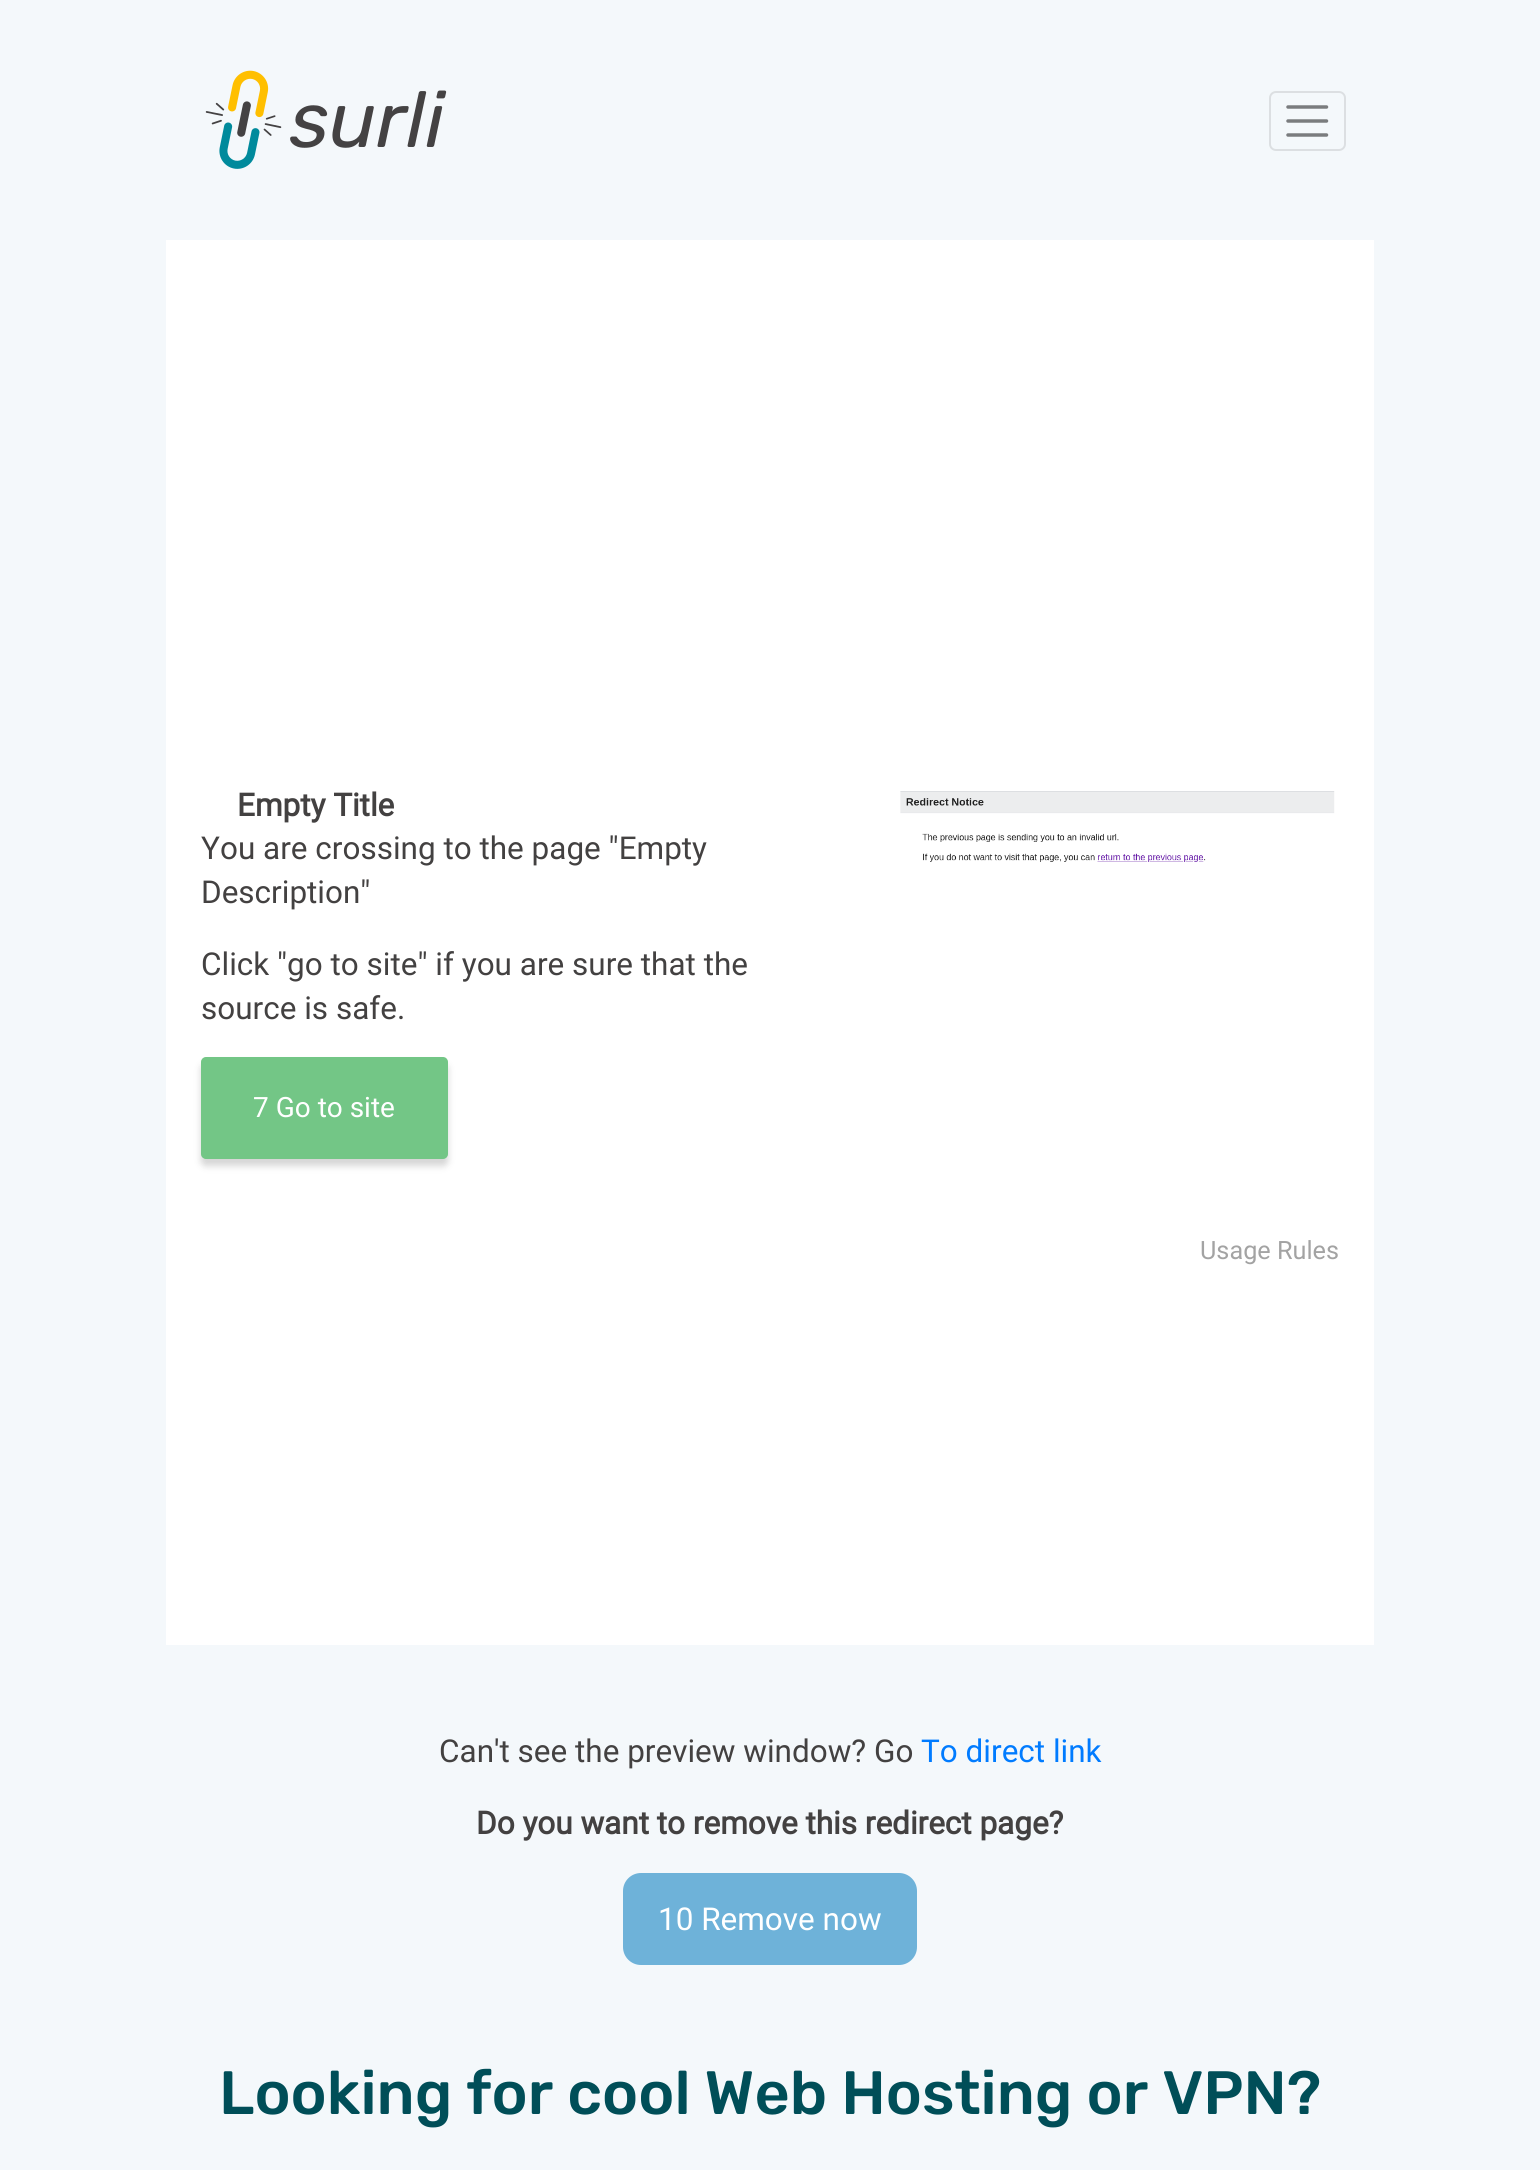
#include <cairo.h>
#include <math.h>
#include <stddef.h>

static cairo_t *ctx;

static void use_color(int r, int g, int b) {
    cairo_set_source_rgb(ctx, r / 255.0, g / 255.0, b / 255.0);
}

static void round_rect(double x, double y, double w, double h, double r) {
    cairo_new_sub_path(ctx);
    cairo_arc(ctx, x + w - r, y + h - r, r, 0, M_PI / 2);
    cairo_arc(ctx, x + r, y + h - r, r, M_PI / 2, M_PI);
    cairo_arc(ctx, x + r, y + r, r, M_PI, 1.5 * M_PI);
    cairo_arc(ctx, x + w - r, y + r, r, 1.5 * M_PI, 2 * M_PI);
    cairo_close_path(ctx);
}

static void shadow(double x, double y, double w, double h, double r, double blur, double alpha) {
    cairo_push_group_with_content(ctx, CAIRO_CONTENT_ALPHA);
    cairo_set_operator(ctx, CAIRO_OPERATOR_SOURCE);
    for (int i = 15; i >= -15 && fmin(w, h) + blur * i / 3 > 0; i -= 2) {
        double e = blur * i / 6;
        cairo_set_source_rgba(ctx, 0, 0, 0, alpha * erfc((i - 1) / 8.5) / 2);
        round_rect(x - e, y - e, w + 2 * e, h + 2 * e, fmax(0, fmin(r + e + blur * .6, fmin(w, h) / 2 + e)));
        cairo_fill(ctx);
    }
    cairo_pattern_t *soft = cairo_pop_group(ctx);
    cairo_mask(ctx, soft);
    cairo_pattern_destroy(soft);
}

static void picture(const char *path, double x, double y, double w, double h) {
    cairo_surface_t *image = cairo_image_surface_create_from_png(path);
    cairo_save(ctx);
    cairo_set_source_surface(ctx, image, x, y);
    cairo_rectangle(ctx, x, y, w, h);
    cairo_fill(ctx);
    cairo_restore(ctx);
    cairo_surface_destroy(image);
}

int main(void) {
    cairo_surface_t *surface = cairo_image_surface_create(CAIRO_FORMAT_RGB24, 1540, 2170);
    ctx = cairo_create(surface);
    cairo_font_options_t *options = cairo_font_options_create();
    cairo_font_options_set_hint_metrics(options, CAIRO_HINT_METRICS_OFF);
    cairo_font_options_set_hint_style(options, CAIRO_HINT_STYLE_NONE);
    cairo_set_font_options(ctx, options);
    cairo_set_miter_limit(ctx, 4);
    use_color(244, 248, 251);
    cairo_paint(ctx);
    picture("img1.png", 205, 70, 242, 99);
    round_rect(1270, 92, 75, 58, 6);
    use_color(220, 223, 226);
    cairo_stroke(ctx);
    cairo_new_path(ctx);
    cairo_move_to(ctx, 1288, 107);
    cairo_line_to(ctx, 1326.5, 107);
    cairo_move_to(ctx, 1288, 121);
    cairo_line_to(ctx, 1326.5, 121);
    cairo_move_to(ctx, 1288, 135);
    cairo_line_to(ctx, 1326.5, 135);
    use_color(122, 124, 126);
    cairo_set_line_width(ctx, 3.5);
    cairo_set_line_cap(ctx, CAIRO_LINE_CAP_ROUND);
    cairo_stroke(ctx);
    use_color(255, 255, 255);
    cairo_rectangle(ctx, 166, 240, 1208, 1405);
    cairo_fill(ctx);
    cairo_select_font_face(ctx, "Roboto", CAIRO_FONT_SLANT_NORMAL, CAIRO_FONT_WEIGHT_BOLD);
    cairo_set_font_size(ctx, 31.5);
    use_color(67, 65, 65);
    cairo_move_to(ctx, 237, 816);
    cairo_show_text(ctx, "Empty Title");
    cairo_select_font_face(ctx, "Roboto", CAIRO_FONT_SLANT_NORMAL, CAIRO_FONT_WEIGHT_NORMAL);
    cairo_move_to(ctx, 201, 859);
    cairo_show_text(ctx, "You are crossing to the page \"Empty");
    cairo_move_to(ctx, 201, 903);
    cairo_show_text(ctx, "Description\"");
    cairo_move_to(ctx, 201, 975);
    cairo_show_text(ctx, "Click \"go to site\" if you are sure that the");
    cairo_move_to(ctx, 201, 1019);
    cairo_show_text(ctx, "source is safe.");
    use_color(89, 89, 89);
    shadow(201, 1064, 247, 102, 5, 3.5, 0.25);
    use_color(115, 198, 134);
    round_rect(202, 1058, 245, 100, 4);
    cairo_fill_preserve(ctx);
    cairo_set_line_width(ctx, 2);
    cairo_set_line_cap(ctx, CAIRO_LINE_CAP_BUTT);
    cairo_stroke(ctx);
    cairo_set_font_size(ctx, 28);
    use_color(255, 255, 255);
    cairo_move_to(ctx, 253, 1117);
    cairo_show_text(ctx, "7 Go to site");
    picture("img2.png", 900, 791, 435, 71);
    cairo_set_font_size(ctx, 25.25);
    use_color(163, 163, 163);
    cairo_move_to(ctx, 1200, 1259);
    cairo_show_text(ctx, "Usage Rules");
    cairo_set_font_size(ctx, 31.5);
    use_color(67, 65, 65);
    cairo_move_to(ctx, 439, 1762);
    cairo_show_text(ctx, "Can't see the preview window? Go");
    use_color(0, 123, 255);
    cairo_move_to(ctx, 921, 1762);
    cairo_show_text(ctx, "To direct link");
    cairo_select_font_face(ctx, "Roboto", CAIRO_FONT_SLANT_NORMAL, CAIRO_FONT_WEIGHT_BOLD);
    use_color(67, 65, 65);
    cairo_move_to(ctx, 476, 1834);
    cairo_show_text(ctx, "Do you want to remove this redirect page?");
    use_color(110, 178, 217);
    round_rect(623, 1873, 294, 92, 18);
    cairo_fill(ctx);
    cairo_select_font_face(ctx, "Roboto", CAIRO_FONT_SLANT_NORMAL, CAIRO_FONT_WEIGHT_NORMAL);
    use_color(255, 255, 255);
    cairo_move_to(ctx, 658, 1930);
    cairo_show_text(ctx, "10 Remove now");
    cairo_select_font_face(ctx, "Rubik Medium", CAIRO_FONT_SLANT_NORMAL, CAIRO_FONT_WEIGHT_NORMAL);
    cairo_set_font_size(ctx, 61.1);
    use_color(0, 78, 88);
    cairo_move_to(ctx, 219, 2114);
    cairo_show_text(ctx, "Looking for cool Web Hosting or VPN?");
    cairo_surface_write_to_png(surface, "result.png");
    cairo_font_options_destroy(options);
    cairo_destroy(ctx);
    cairo_surface_destroy(surface);
    return 0;
}
